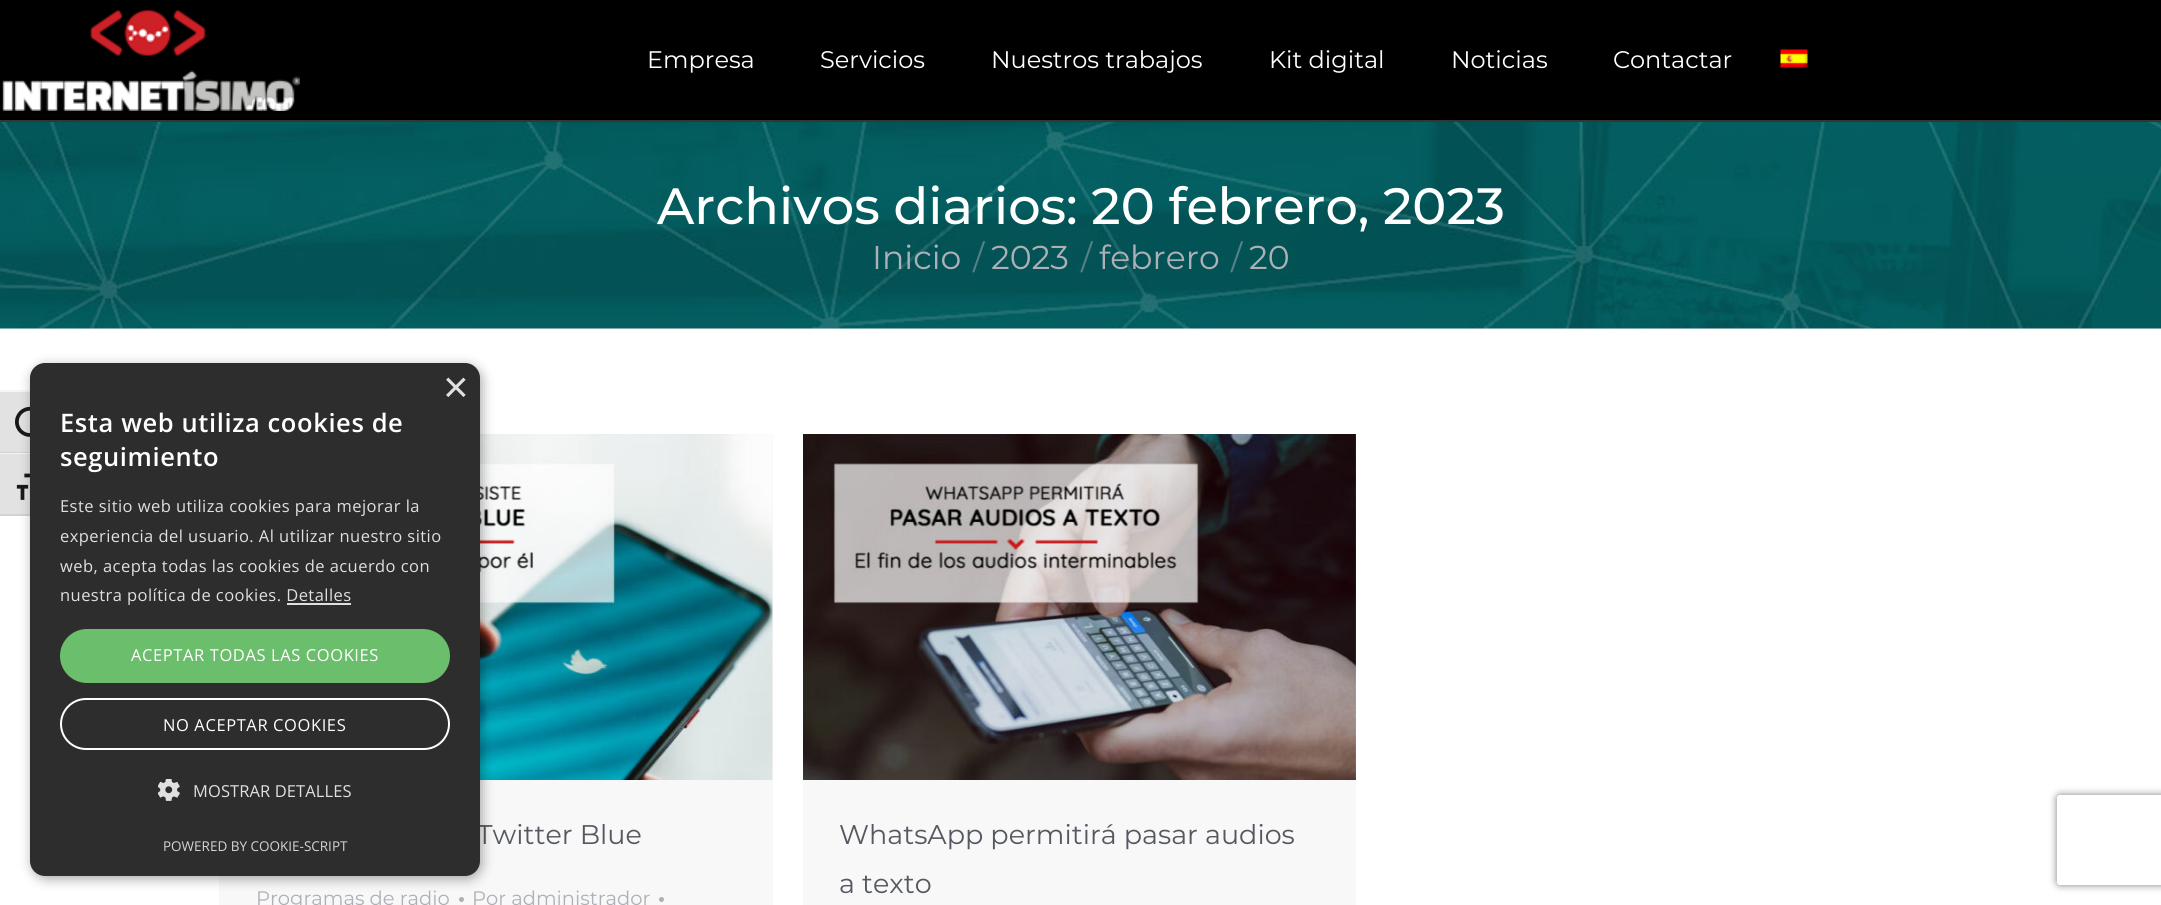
#include <cairo.h>
#include <math.h>
#include <stddef.h>

static cairo_t *ctx;

static void use_color(int r, int g, int b) {
    cairo_set_source_rgb(ctx, r / 255.0, g / 255.0, b / 255.0);
}

static void spaced_text(double x, double y, const char *s, double letter, double word) {
    cairo_move_to(ctx, x, y);
    while (*s) {
        char ch[5] = {0};
        int n = 0;
        do ch[n++] = *s++; while ((*s & 0xC0) == 0x80);
        cairo_show_text(ctx, ch);
        cairo_rel_move_to(ctx, letter + word * (*ch == ' '), 0);
    }
}

static void round_rect(double x, double y, double w, double h, double r) {
    cairo_new_sub_path(ctx);
    cairo_arc(ctx, x + w - r, y + h - r, r, 0, M_PI / 2);
    cairo_arc(ctx, x + r, y + h - r, r, M_PI / 2, M_PI);
    cairo_arc(ctx, x + r, y + r, r, M_PI, 1.5 * M_PI);
    cairo_arc(ctx, x + w - r, y + r, r, 1.5 * M_PI, 2 * M_PI);
    cairo_close_path(ctx);
}

static void shadow(double x, double y, double w, double h, double r, double blur, double alpha) {
    cairo_push_group_with_content(ctx, CAIRO_CONTENT_ALPHA);
    cairo_set_operator(ctx, CAIRO_OPERATOR_SOURCE);
    for (int i = 15; i >= -15 && fmin(w, h) + blur * i / 3 > 0; i -= 2) {
        double e = blur * i / 6;
        cairo_set_source_rgba(ctx, 0, 0, 0, alpha * erfc((i - 1) / 8.5) / 2);
        round_rect(x - e, y - e, w + 2 * e, h + 2 * e, fmax(0, fmin(r + e + blur * .6, fmin(w, h) / 2 + e)));
        cairo_fill(ctx);
    }
    cairo_pattern_t *soft = cairo_pop_group(ctx);
    cairo_mask(ctx, soft);
    cairo_pattern_destroy(soft);
}

static void picture(const char *path, double x, double y, double w, double h) {
    cairo_surface_t *image = cairo_image_surface_create_from_png(path);
    cairo_save(ctx);
    cairo_set_source_surface(ctx, image, x, y);
    cairo_rectangle(ctx, x, y, w, h);
    cairo_fill(ctx);
    cairo_restore(ctx);
    cairo_surface_destroy(image);
}

int main(void) {
    cairo_surface_t *surface = cairo_image_surface_create(CAIRO_FORMAT_RGB24, 2161, 905);
    ctx = cairo_create(surface);
    cairo_font_options_t *options = cairo_font_options_create();
    cairo_font_options_set_hint_metrics(options, CAIRO_HINT_METRICS_OFF);
    cairo_font_options_set_hint_style(options, CAIRO_HINT_STYLE_NONE);
    cairo_set_font_options(ctx, options);
    cairo_set_miter_limit(ctx, 4);
    use_color(255, 255, 255);
    cairo_paint(ctx);
    use_color(0, 0, 0);
    cairo_rectangle(ctx, 0, 0, 2161, 120);
    cairo_fill(ctx);
    use_color(52, 53, 55);
    cairo_rectangle(ctx, 0, 120, 2161, 2);
    cairo_fill(ctx);
    picture("img1.png", 2, 10, 298, 101);
    cairo_select_font_face(ctx, "Montserrat", CAIRO_FONT_SLANT_NORMAL, CAIRO_FONT_WEIGHT_NORMAL);
    cairo_set_font_size(ctx, 24);
    use_color(255, 255, 255);
    cairo_move_to(ctx, 647, 68);
    cairo_show_text(ctx, "Empresa");
    cairo_move_to(ctx, 820, 68);
    cairo_show_text(ctx, "Servicios");
    cairo_move_to(ctx, 991, 68);
    cairo_show_text(ctx, "Nuestros trabajos");
    cairo_move_to(ctx, 1269, 68);
    cairo_show_text(ctx, "Kit digital");
    cairo_move_to(ctx, 1451, 68);
    cairo_show_text(ctx, "Noticias");
    cairo_move_to(ctx, 1613, 68);
    cairo_show_text(ctx, "Contactar");
    picture("img2.png", 1780, 49, 28, 19);
    use_color(247, 247, 247);
    cairo_rectangle(ctx, 0, 328, 2161, 1);
    cairo_fill(ctx);
    picture("img3.png", 0, 122, 2161, 207);
    cairo_select_font_face(ctx, "Montserrat Medium", CAIRO_FONT_SLANT_NORMAL, CAIRO_FONT_WEIGHT_NORMAL);
    cairo_set_font_size(ctx, 51);
    use_color(255, 255, 255);
    cairo_move_to(ctx, 657, 224);
    cairo_show_text(ctx, "Archivos diarios: 20 febrero, 2023");
    cairo_select_font_face(ctx, "Montserrat", CAIRO_FONT_SLANT_NORMAL, CAIRO_FONT_WEIGHT_NORMAL);
    cairo_set_font_size(ctx, 33);
    use_color(173, 176, 182);
    cairo_move_to(ctx, 872, 269);
    cairo_show_text(ctx, "Inicio");
    use_color(88, 129, 134);
    cairo_move_to(ctx, 973, 269);
    cairo_show_text(ctx, "/");
    use_color(173, 176, 182);
    cairo_move_to(ctx, 991, 269);
    cairo_show_text(ctx, "2023");
    use_color(88, 129, 134);
    cairo_move_to(ctx, 1081, 269);
    cairo_show_text(ctx, "/");
    use_color(173, 176, 182);
    cairo_move_to(ctx, 1099, 269);
    cairo_show_text(ctx, "febrero");
    use_color(88, 129, 134);
    cairo_move_to(ctx, 1231, 269);
    cairo_show_text(ctx, "/");
    use_color(173, 176, 182);
    cairo_move_to(ctx, 1249, 269);
    cairo_show_text(ctx, "20");
    use_color(248, 248, 249);
    cairo_rectangle(ctx, 219, 434, 554, 471);
    cairo_fill(ctx);
    picture("img4.png", 480, 434, 293, 346);
    cairo_set_font_size(ctx, 27);
    use_color(85, 88, 96);
    cairo_move_to(ctx, 477, 844);
    cairo_show_text(ctx, "Twitter Blue");
    cairo_set_font_size(ctx, 19.5);
    use_color(173, 176, 182);
    cairo_move_to(ctx, 256, 905);
    cairo_show_text(ctx, "Programas de radio");
    cairo_new_path(ctx);
    cairo_arc(ctx, 461.5, 899.5, 2.5, 0, 2 * M_PI);
    cairo_fill(ctx);
    cairo_move_to(ctx, 472, 905);
    cairo_show_text(ctx, "Por administrador");
    cairo_new_path(ctx);
    cairo_arc(ctx, 661.5, 899.5, 2.5, 0, 2 * M_PI);
    cairo_fill(ctx);
    use_color(248, 248, 249);
    cairo_rectangle(ctx, 803, 434, 553, 471);
    cairo_fill(ctx);
    picture("img5.png", 803, 434, 553, 346);
    cairo_set_font_size(ctx, 27);
    use_color(85, 88, 96);
    cairo_move_to(ctx, 839, 844);
    cairo_show_text(ctx, "WhatsApp permitirá pasar audios");
    cairo_move_to(ctx, 839, 893);
    cairo_show_text(ctx, "a texto");
    use_color(226, 226, 226);
    cairo_rectangle(ctx, 0, 392, 30, 60);
    cairo_fill(ctx);
    use_color(245, 245, 245);
    cairo_new_path(ctx);
    cairo_move_to(ctx, 0, 390);
    cairo_line_to(ctx, 0, 392);
    cairo_line_to(ctx, 54, 392);
    cairo_curve_to(ctx, 57, 392, 60, 394, 60, 396);
    cairo_curve_to(ctx, 60, 393, 57, 390, 54, 390);
    cairo_close_path(ctx);
    cairo_fill(ctx);
    use_color(210, 210, 210);
    cairo_rectangle(ctx, 0, 452, 30, 1);
    cairo_fill(ctx);
    picture("img6.png", 15, 406, 15, 31);
    use_color(226, 226, 226);
    cairo_rectangle(ctx, 0, 454, 30, 60);
    cairo_fill(ctx);
    use_color(245, 245, 245);
    cairo_rectangle(ctx, 0, 453, 30, 1);
    cairo_fill(ctx);
    use_color(210, 210, 210);
    cairo_new_path(ctx);
    cairo_move_to(ctx, 0, 514);
    cairo_line_to(ctx, 0, 516);
    cairo_line_to(ctx, 54, 516);
    cairo_curve_to(ctx, 57, 516, 60, 513, 60, 510);
    cairo_curve_to(ctx, 60, 512, 57, 514, 54, 514);
    cairo_close_path(ctx);
    cairo_fill(ctx);
    picture("img7.png", 16, 473, 14, 27);
    use_color(0, 0, 0);
    shadow(32, 366, 450, 513, 15, 6, 0.35);
    use_color(45, 45, 45);
    round_rect(30, 363, 450, 513, 15);
    cairo_fill(ctx);
    cairo_select_font_face(ctx, "Liberation Sans", CAIRO_FONT_SLANT_NORMAL, CAIRO_FONT_WEIGHT_NORMAL);
    cairo_set_font_size(ctx, 44);
    use_color(224, 224, 224);
    cairo_move_to(ctx, 443, 402);
    cairo_show_text(ctx, "×");
    cairo_select_font_face(ctx, "Open Sans SemiBold", CAIRO_FONT_SLANT_NORMAL, CAIRO_FONT_WEIGHT_NORMAL);
    cairo_set_font_size(ctx, 25.5);
    use_color(255, 255, 255);
    spaced_text(60, 432, "Esta web utiliza cookies de", 0.6, 0);
    spaced_text(60, 466, "seguimiento", 0.6, 0);
    cairo_select_font_face(ctx, "Open Sans", CAIRO_FONT_SLANT_NORMAL, CAIRO_FONT_WEIGHT_NORMAL);
    cairo_set_font_size(ctx, 16.5);
    use_color(224, 224, 224);
    spaced_text(60, 512, "Este sitio web utiliza cookies para mejorar la", 0.45, 0);
    spaced_text(60, 542, "experiencia del usuario. Al utilizar nuestro sitio", 0.45, 0);
    spaced_text(60, 572, "web, acepta todas las cookies de acuerdo con", 0.45, 0);
    spaced_text(60, 601, "nuestra política de cookies. Detalles", 0.45, 0);
    cairo_rectangle(ctx, 287, 603, 64, 2);
    cairo_fill(ctx);
    use_color(107, 190, 107);
    round_rect(60, 629, 390, 54, 27);
    cairo_fill(ctx);
    use_color(255, 255, 255);
    spaced_text(131, 661, "ACEPTAR TODAS LAS COOKIES", 0.6, 0);
    round_rect(61, 699, 388, 50, 25);
    cairo_stroke(ctx);
    spaced_text(163, 731, "NO ACEPTAR COOKIES", 0.6, 0);
    picture("img8.png", 158, 779, 22, 22);
    use_color(224, 224, 224);
    spaced_text(193, 797, "MOSTRAR DETALLES", 0.1, 0);
    cairo_set_font_size(ctx, 13.5);
    use_color(213, 213, 213);
    cairo_move_to(ctx, 163, 851);
    cairo_show_text(ctx, "POWERED BY COOKIE-SCRIPT");
    cairo_save(ctx);
    cairo_set_fill_rule(ctx, CAIRO_FILL_RULE_EVEN_ODD);
    cairo_new_path(ctx);
    cairo_move_to(ctx, 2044, 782);
    cairo_line_to(ctx, 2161, 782);
    cairo_line_to(ctx, 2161, 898);
    cairo_line_to(ctx, 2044, 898);
    cairo_close_path(ctx);
    cairo_move_to(ctx, 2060, 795);
    cairo_line_to(ctx, 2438, 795);
    cairo_curve_to(ctx, 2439.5, 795, 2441, 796.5, 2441, 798);
    cairo_line_to(ctx, 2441, 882);
    cairo_curve_to(ctx, 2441, 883.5, 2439.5, 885, 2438, 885);
    cairo_line_to(ctx, 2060, 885);
    cairo_curve_to(ctx, 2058.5, 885, 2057, 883.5, 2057, 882);
    cairo_line_to(ctx, 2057, 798);
    cairo_curve_to(ctx, 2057, 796.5, 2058.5, 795, 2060, 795);
    cairo_close_path(ctx);
    cairo_clip(ctx);
    use_color(128, 128, 128);
    shadow(2057, 795, 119, 90, 3, 4, 1);
    cairo_restore(ctx);
    cairo_surface_write_to_png(surface, "result.png");
    cairo_font_options_destroy(options);
    cairo_destroy(ctx);
    cairo_surface_destroy(surface);
    return 0;
}
